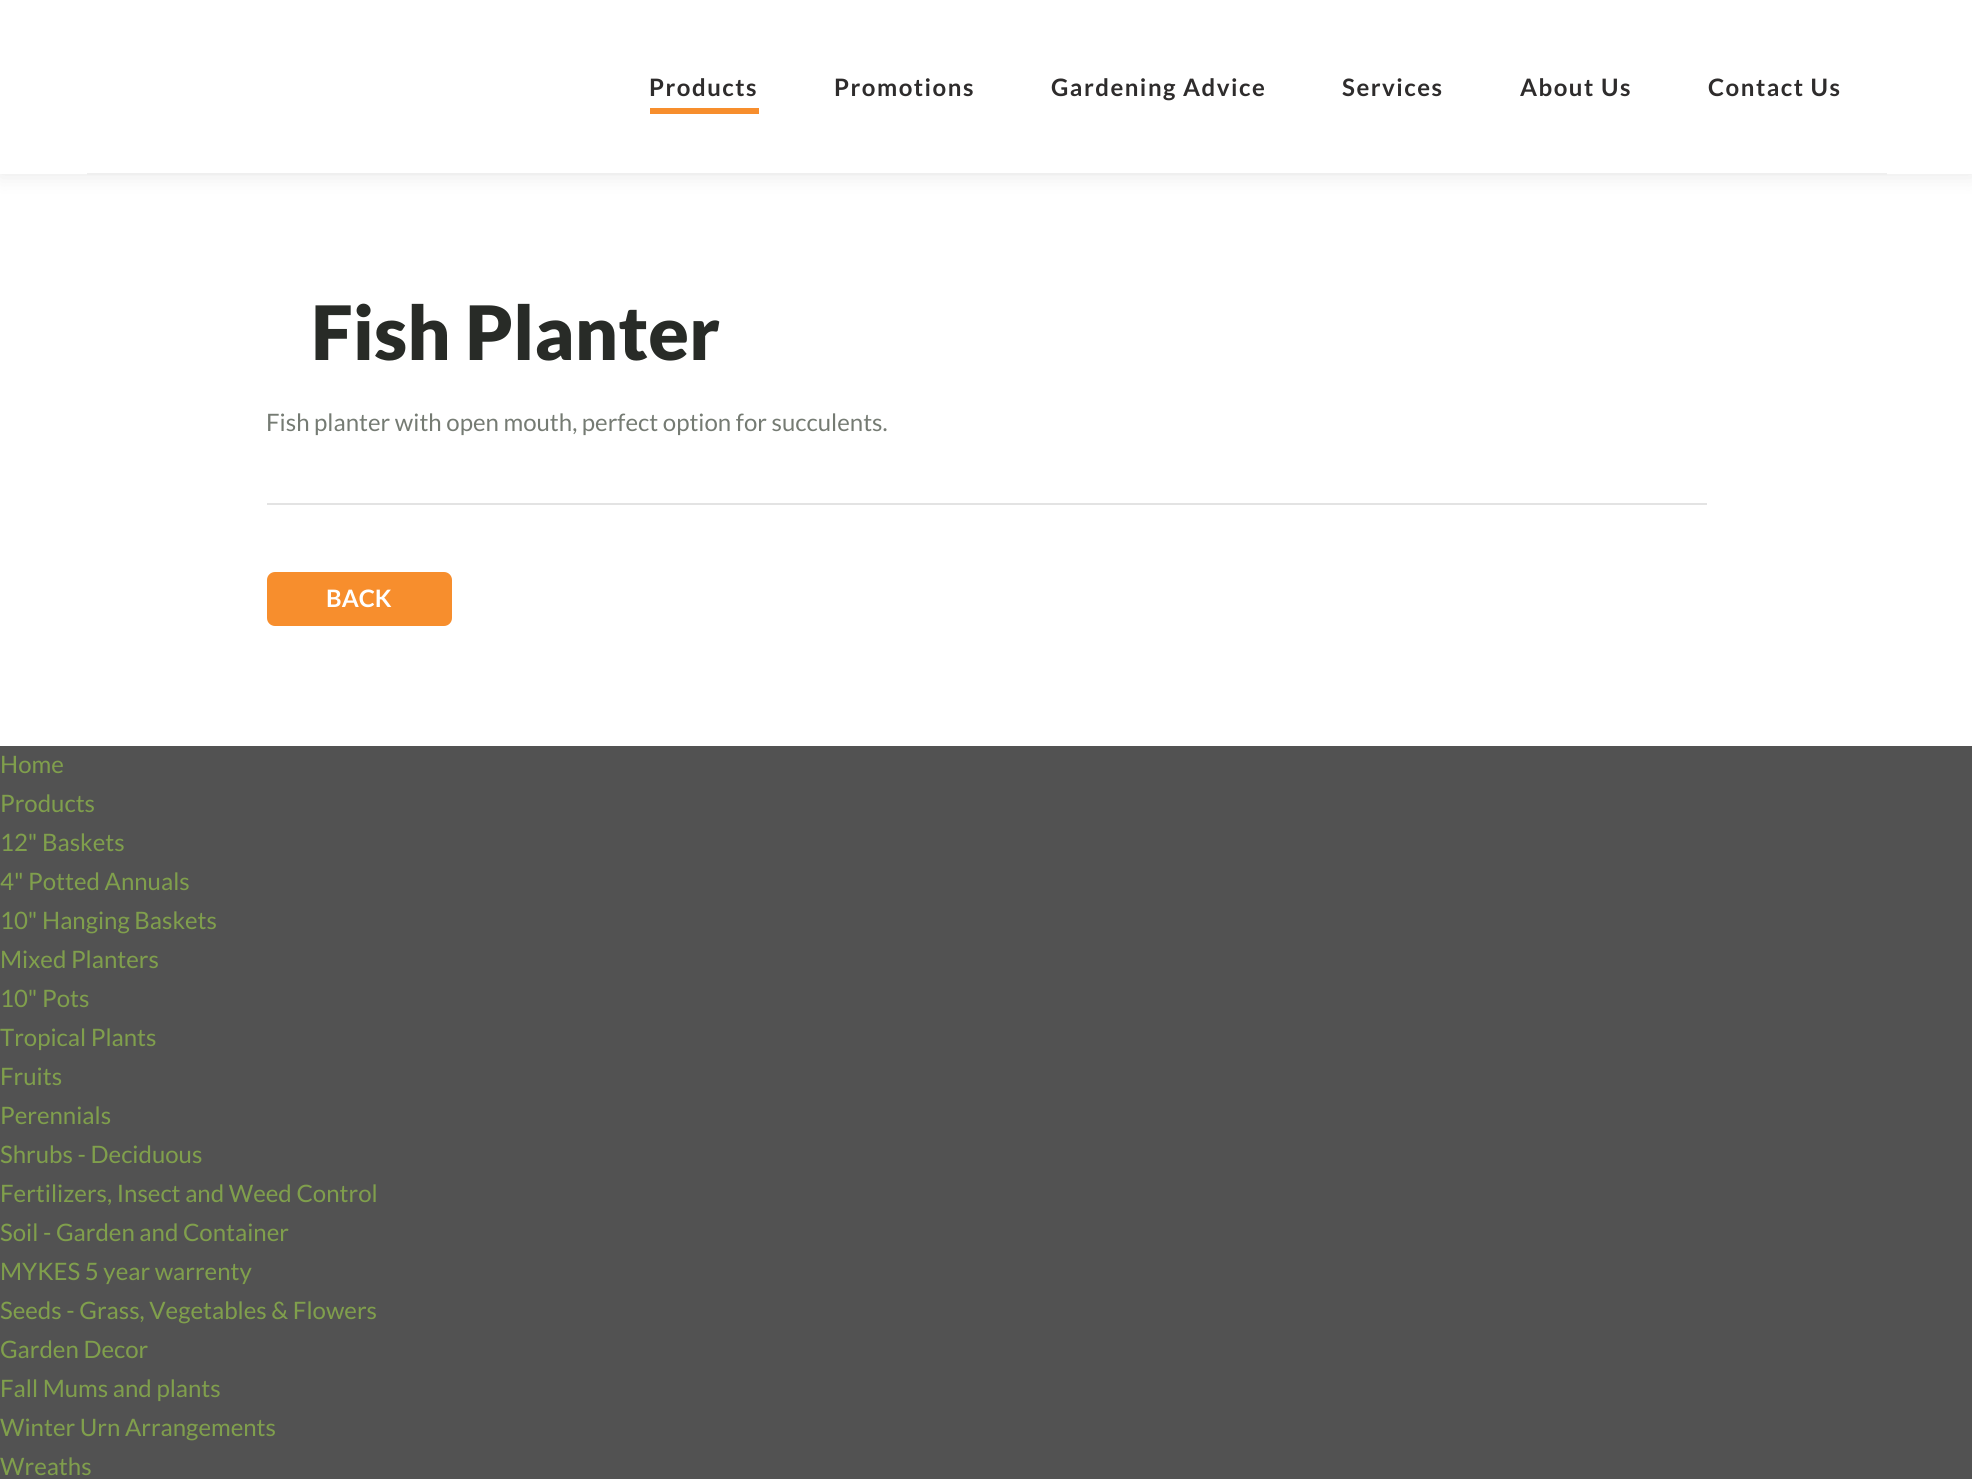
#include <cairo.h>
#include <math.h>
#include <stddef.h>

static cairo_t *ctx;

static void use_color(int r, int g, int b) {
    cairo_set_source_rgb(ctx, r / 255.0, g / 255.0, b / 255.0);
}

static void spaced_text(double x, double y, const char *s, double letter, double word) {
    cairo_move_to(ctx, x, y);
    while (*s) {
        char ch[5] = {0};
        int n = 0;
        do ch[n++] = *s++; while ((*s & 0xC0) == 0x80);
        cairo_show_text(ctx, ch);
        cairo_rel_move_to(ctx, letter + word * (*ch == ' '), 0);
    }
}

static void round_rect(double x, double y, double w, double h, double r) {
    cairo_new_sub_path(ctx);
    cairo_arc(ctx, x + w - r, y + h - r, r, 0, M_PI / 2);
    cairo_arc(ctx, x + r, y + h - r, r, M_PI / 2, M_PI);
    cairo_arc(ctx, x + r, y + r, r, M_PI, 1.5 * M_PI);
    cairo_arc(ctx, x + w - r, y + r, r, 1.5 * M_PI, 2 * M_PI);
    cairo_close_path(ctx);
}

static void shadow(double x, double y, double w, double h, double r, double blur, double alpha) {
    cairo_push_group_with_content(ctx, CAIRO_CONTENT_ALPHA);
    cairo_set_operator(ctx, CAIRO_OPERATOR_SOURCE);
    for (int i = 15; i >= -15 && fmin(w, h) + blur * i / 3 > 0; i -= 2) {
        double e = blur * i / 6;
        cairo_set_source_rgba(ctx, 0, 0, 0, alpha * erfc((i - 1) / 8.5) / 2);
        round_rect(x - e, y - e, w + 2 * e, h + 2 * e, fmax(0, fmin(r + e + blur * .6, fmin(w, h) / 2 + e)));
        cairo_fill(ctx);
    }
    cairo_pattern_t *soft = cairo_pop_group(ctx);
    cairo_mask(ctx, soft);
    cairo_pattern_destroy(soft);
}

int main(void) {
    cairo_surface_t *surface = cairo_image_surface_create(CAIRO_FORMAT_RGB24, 1972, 1479);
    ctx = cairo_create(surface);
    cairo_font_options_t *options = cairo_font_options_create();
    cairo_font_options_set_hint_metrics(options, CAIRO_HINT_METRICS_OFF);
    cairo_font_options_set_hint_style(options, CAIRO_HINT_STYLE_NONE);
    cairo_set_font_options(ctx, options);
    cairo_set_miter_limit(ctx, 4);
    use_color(82, 82, 82);
    cairo_paint(ctx);
    use_color(255, 255, 255);
    cairo_rectangle(ctx, 0, 174, 1972, 572);
    cairo_fill(ctx);
    use_color(0, 0, 0);
    shadow(0, 0, 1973, 174, 0, 11, 0.1);
    use_color(255, 255, 255);
    cairo_rectangle(ctx, 0, 0, 1972, 174);
    cairo_fill(ctx);
    cairo_select_font_face(ctx, "Lato", CAIRO_FONT_SLANT_NORMAL, CAIRO_FONT_WEIGHT_BOLD);
    cairo_set_font_size(ctx, 24);
    use_color(46, 44, 44);
    spaced_text(649, 96, "Products", 1.5, 0);
    use_color(247, 142, 45);
    cairo_rectangle(ctx, 650, 108, 109, 6);
    cairo_fill(ctx);
    use_color(46, 44, 44);
    spaced_text(834, 96, "Promotions", 1.5, 0);
    spaced_text(1051, 96, "Gardening Advice", 1.5, 0);
    spaced_text(1342, 96, "Services", 1.5, 0);
    spaced_text(1520, 96, "About Us", 1.5, 0);
    spaced_text(1708, 96, "Contact Us", 1.5, 0);
    use_color(239, 239, 239);
    cairo_rectangle(ctx, 87, 173, 1800, 2);
    cairo_fill(ctx);
    cairo_select_font_face(ctx, "Lato Black", CAIRO_FONT_SLANT_NORMAL, CAIRO_FONT_WEIGHT_NORMAL);
    cairo_set_font_size(ctx, 75);
    use_color(40, 43, 39);
    cairo_move_to(ctx, 311, 360);
    cairo_show_text(ctx, "Fish Planter");
    cairo_select_font_face(ctx, "Lato", CAIRO_FONT_SLANT_NORMAL, CAIRO_FONT_WEIGHT_NORMAL);
    cairo_set_font_size(ctx, 24);
    use_color(117, 123, 115);
    cairo_move_to(ctx, 266, 431);
    cairo_show_text(ctx, "Fish planter with open mouth, perfect option for succulents.");
    use_color(227, 227, 227);
    cairo_rectangle(ctx, 267, 503, 1440, 2);
    cairo_fill(ctx);
    use_color(247, 142, 45);
    round_rect(267, 572, 185, 54, 8);
    cairo_fill(ctx);
    cairo_select_font_face(ctx, "Lato", CAIRO_FONT_SLANT_NORMAL, CAIRO_FONT_WEIGHT_BOLD);
    use_color(255, 255, 255);
    cairo_move_to(ctx, 326, 607);
    cairo_show_text(ctx, "BACK");
    cairo_select_font_face(ctx, "Lato", CAIRO_FONT_SLANT_NORMAL, CAIRO_FONT_WEIGHT_NORMAL);
    use_color(128, 159, 76);
    cairo_move_to(ctx, 0, 773);
    cairo_show_text(ctx, "Home");
    cairo_move_to(ctx, 0, 812);
    cairo_show_text(ctx, "Products");
    cairo_move_to(ctx, 0, 851);
    cairo_show_text(ctx, "12\" Baskets");
    cairo_move_to(ctx, 0, 890);
    cairo_show_text(ctx, "4\" Potted Annuals");
    cairo_move_to(ctx, 0, 929);
    cairo_show_text(ctx, "10\" Hanging Baskets");
    cairo_move_to(ctx, 0, 968);
    cairo_show_text(ctx, "Mixed Planters");
    cairo_move_to(ctx, 0, 1007);
    cairo_show_text(ctx, "10\" Pots");
    cairo_move_to(ctx, 0, 1046);
    cairo_show_text(ctx, "Tropical Plants");
    cairo_move_to(ctx, 0, 1085);
    cairo_show_text(ctx, "Fruits");
    cairo_move_to(ctx, 0, 1124);
    cairo_show_text(ctx, "Perennials");
    cairo_move_to(ctx, 0, 1163);
    cairo_show_text(ctx, "Shrubs - Deciduous");
    cairo_move_to(ctx, 0, 1202);
    cairo_show_text(ctx, "Fertilizers, Insect and Weed Control");
    cairo_move_to(ctx, 0, 1241);
    cairo_show_text(ctx, "Soil - Garden and Container");
    cairo_move_to(ctx, 0, 1280);
    cairo_show_text(ctx, "MYKES 5 year warrenty");
    cairo_move_to(ctx, 0, 1319);
    cairo_show_text(ctx, "Seeds - Grass, Vegetables & Flowers");
    cairo_move_to(ctx, 0, 1358);
    cairo_show_text(ctx, "Garden Decor");
    cairo_move_to(ctx, 0, 1397);
    cairo_show_text(ctx, "Fall Mums and plants");
    cairo_move_to(ctx, 0, 1436);
    cairo_show_text(ctx, "Winter Urn Arrangements");
    cairo_move_to(ctx, 0, 1475);
    cairo_show_text(ctx, "Wreaths");
    cairo_surface_write_to_png(surface, "result.png");
    cairo_font_options_destroy(options);
    cairo_destroy(ctx);
    cairo_surface_destroy(surface);
    return 0;
}
